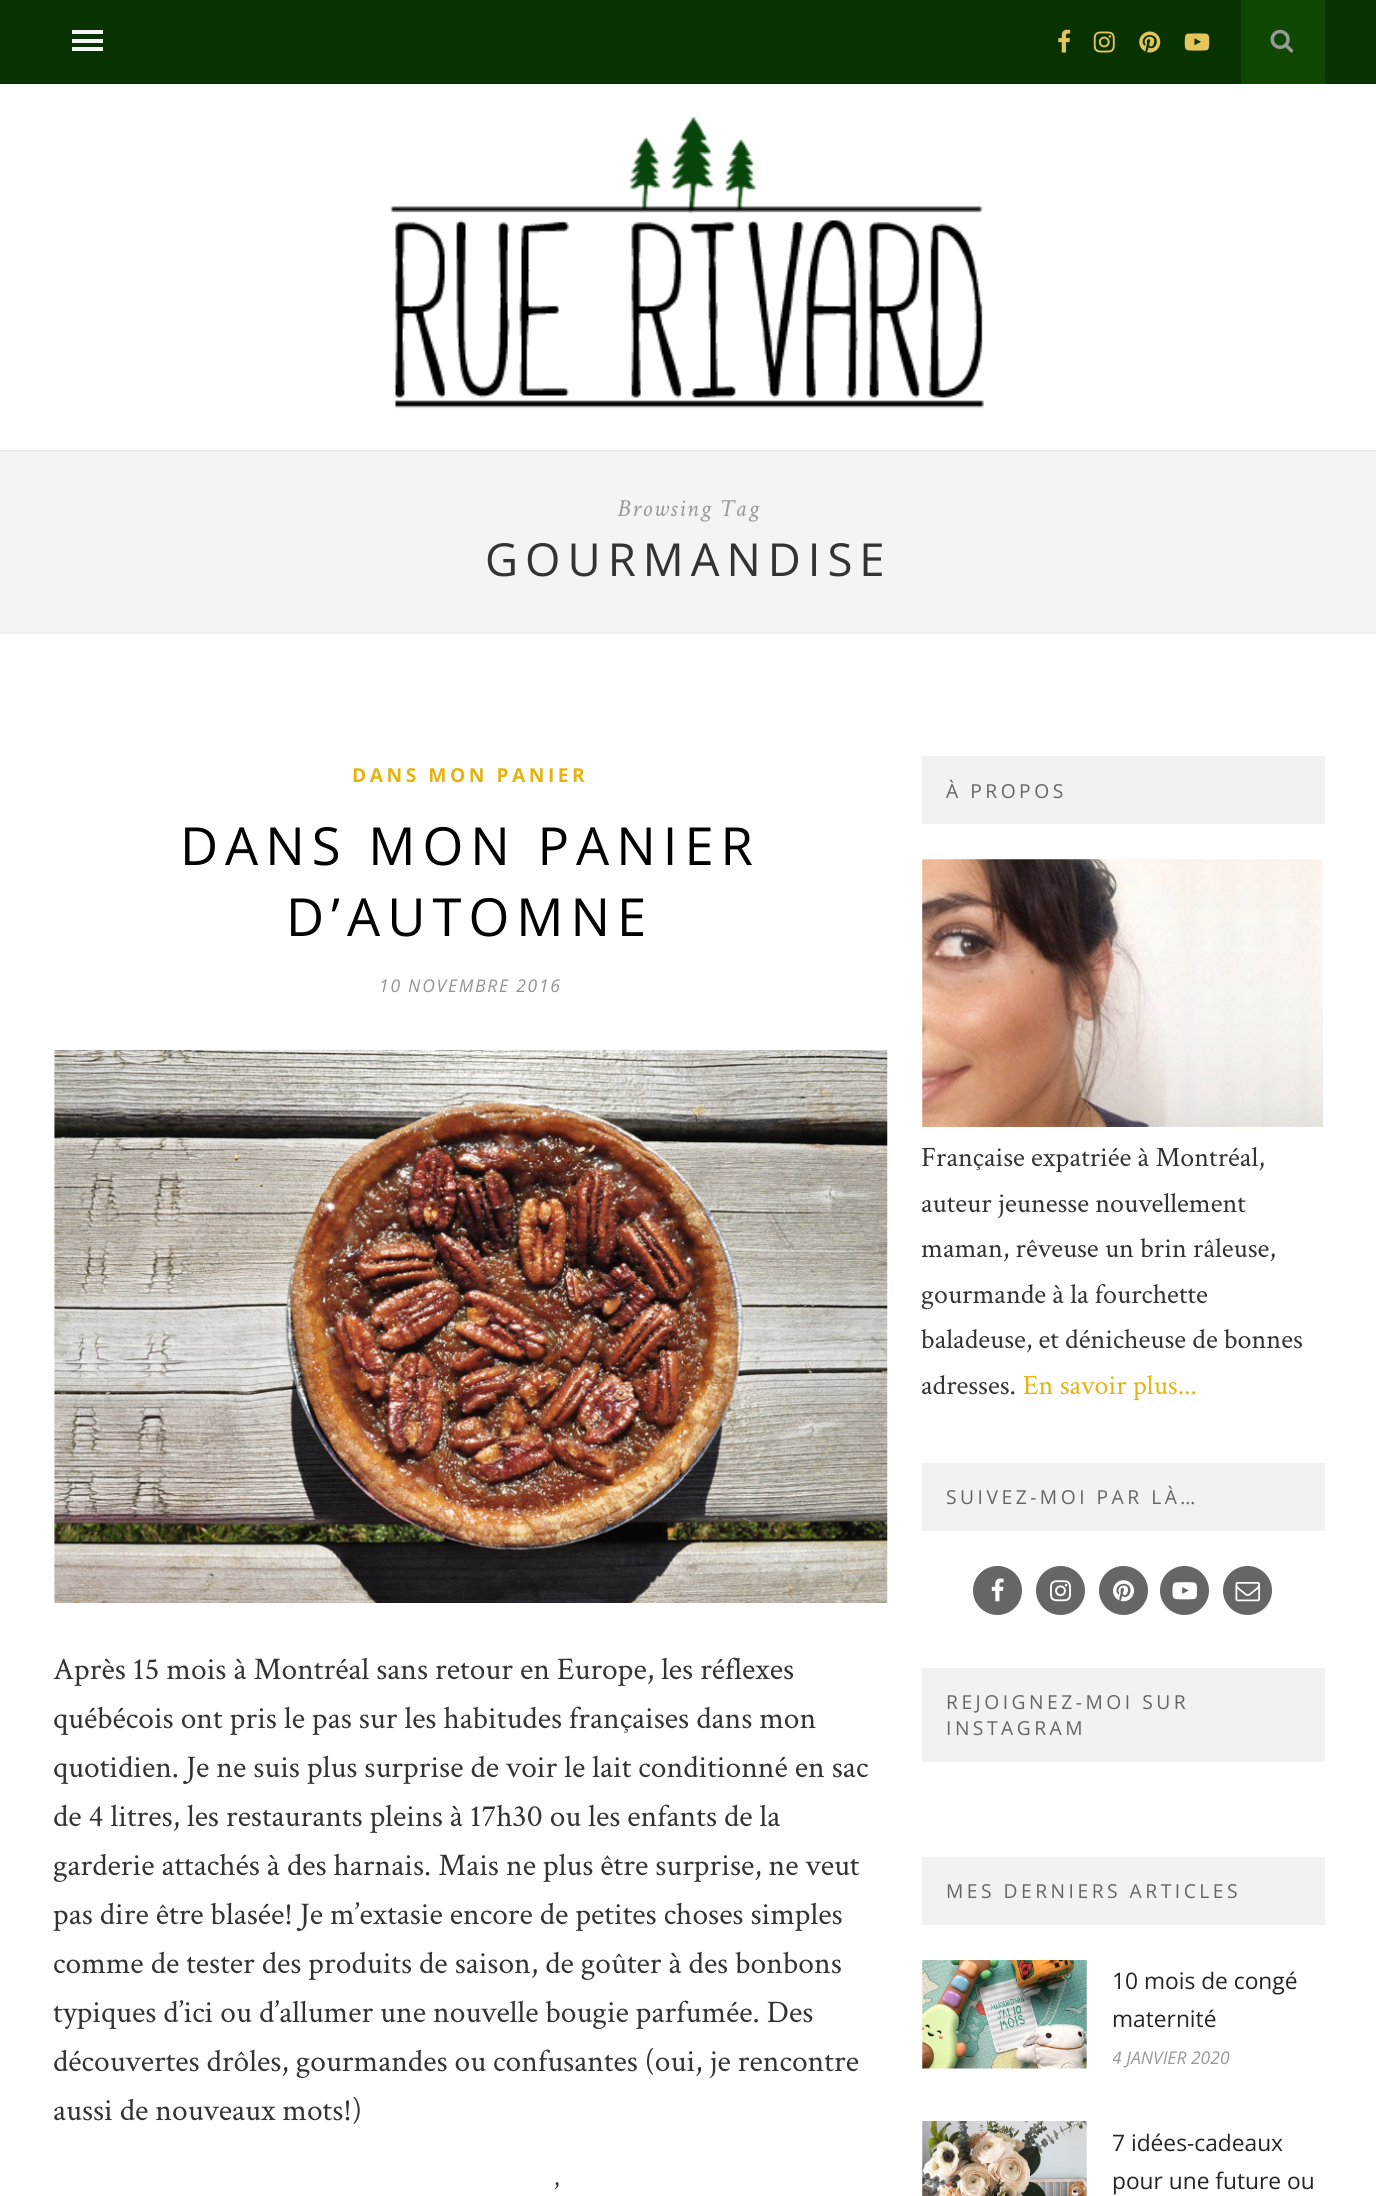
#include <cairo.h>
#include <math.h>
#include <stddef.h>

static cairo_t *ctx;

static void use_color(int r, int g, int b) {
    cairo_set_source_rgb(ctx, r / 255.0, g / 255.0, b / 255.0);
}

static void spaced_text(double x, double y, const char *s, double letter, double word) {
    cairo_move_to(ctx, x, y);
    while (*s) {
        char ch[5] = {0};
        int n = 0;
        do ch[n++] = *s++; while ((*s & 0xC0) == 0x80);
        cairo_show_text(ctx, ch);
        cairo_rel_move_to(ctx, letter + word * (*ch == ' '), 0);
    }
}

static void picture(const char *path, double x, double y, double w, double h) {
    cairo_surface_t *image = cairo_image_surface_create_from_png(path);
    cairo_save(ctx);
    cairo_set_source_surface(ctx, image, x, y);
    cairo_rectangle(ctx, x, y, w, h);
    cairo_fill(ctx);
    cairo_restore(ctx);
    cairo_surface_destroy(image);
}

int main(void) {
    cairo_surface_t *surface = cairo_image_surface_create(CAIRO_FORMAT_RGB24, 1376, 2196);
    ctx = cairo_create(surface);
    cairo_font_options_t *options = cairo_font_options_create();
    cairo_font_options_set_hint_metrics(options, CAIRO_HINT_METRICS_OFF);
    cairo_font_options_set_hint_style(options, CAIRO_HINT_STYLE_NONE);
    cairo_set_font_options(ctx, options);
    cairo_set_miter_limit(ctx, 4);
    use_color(255, 255, 255);
    cairo_paint(ctx);
    use_color(7, 51, 0);
    cairo_rectangle(ctx, 0, 0, 1376, 84);
    cairo_fill(ctx);
    use_color(245, 245, 245);
    cairo_rectangle(ctx, 72, 30, 31, 4);
    cairo_fill(ctx);
    cairo_rectangle(ctx, 72, 39, 31, 4);
    cairo_fill(ctx);
    cairo_rectangle(ctx, 72, 47, 31, 4);
    cairo_fill(ctx);
    picture("img1.png", 1058, 29, 13, 24);
    picture("img2.png", 1093, 31, 22, 22);
    picture("img3.png", 1139, 31, 22, 22);
    picture("img4.png", 1184, 33, 26, 18);
    use_color(13, 71, 0);
    cairo_rectangle(ctx, 1241, 0, 84, 84);
    cairo_fill(ctx);
    picture("img5.png", 1270, 29, 24, 24);
    use_color(238, 238, 238);
    cairo_rectangle(ctx, 0, 450, 1376, 2);
    cairo_fill(ctx);
    picture("img6.png", 390, 116, 594, 293);
    use_color(244, 244, 244);
    cairo_rectangle(ctx, 0, 452, 1376, 180);
    cairo_fill(ctx);
    use_color(238, 238, 238);
    cairo_rectangle(ctx, 0, 632, 1376, 2);
    cairo_fill(ctx);
    cairo_select_font_face(ctx, "Crimson Text", CAIRO_FONT_SLANT_ITALIC, CAIRO_FONT_WEIGHT_NORMAL);
    cairo_set_font_size(ctx, 24.5);
    use_color(153, 153, 153);
    spaced_text(617, 516, "Browsing Tag", 1.75, 0);
    cairo_select_font_face(ctx, "Open Sans", CAIRO_FONT_SLANT_NORMAL, CAIRO_FONT_WEIGHT_NORMAL);
    cairo_set_font_size(ctx, 45.5);
    use_color(51, 51, 51);
    spaced_text(485, 576, "GOURMANDISE", 7, 0);
    cairo_select_font_face(ctx, "Open Sans", CAIRO_FONT_SLANT_NORMAL, CAIRO_FONT_WEIGHT_BOLD);
    cairo_set_font_size(ctx, 19.25);
    use_color(229, 179, 16);
    spaced_text(352, 782, "DANS MON PANIER", 3.5, 0);
    cairo_select_font_face(ctx, "Open Sans", CAIRO_FONT_SLANT_NORMAL, CAIRO_FONT_WEIGHT_NORMAL);
    cairo_set_font_size(ctx, 52.5);
    use_color(0, 0, 0);
    spaced_text(180, 865, "DANS MON PANIER", 7, 0);
    spaced_text(286, 936, "D’AUTOMNE", 7, 0);
    cairo_select_font_face(ctx, "Open Sans", CAIRO_FONT_SLANT_ITALIC, CAIRO_FONT_WEIGHT_NORMAL);
    cairo_set_font_size(ctx, 17.5);
    use_color(147, 147, 147);
    spaced_text(379, 992, "10 NOVEMBRE 2016", 1.75, 0);
    picture("img7.png", 54, 1050, 834, 553);
    cairo_select_font_face(ctx, "Crimson Text", CAIRO_FONT_SLANT_NORMAL, CAIRO_FONT_WEIGHT_NORMAL);
    cairo_set_font_size(ctx, 31.5);
    use_color(51, 51, 51);
    cairo_move_to(ctx, 53, 1679);
    cairo_show_text(ctx, "Après 15 mois à Montréal sans retour en Europe, les réflexes");
    cairo_move_to(ctx, 53, 1728);
    cairo_show_text(ctx, "québécois ont pris le pas sur les habitudes françaises dans mon");
    cairo_move_to(ctx, 53, 1777);
    cairo_show_text(ctx, "quotidien. Je ne suis plus surprise de voir le lait conditionné en sac");
    cairo_move_to(ctx, 53, 1826);
    cairo_show_text(ctx, "de 4 litres, les restaurants pleins à 17h30 ou les enfants de la");
    cairo_move_to(ctx, 53, 1875);
    cairo_show_text(ctx, "garderie attachés à des harnais. Mais ne plus être surprise, ne veut");
    cairo_move_to(ctx, 53, 1924);
    cairo_show_text(ctx, "pas dire être blasée! Je m’extasie encore de petites choses simples");
    cairo_move_to(ctx, 53, 1973);
    cairo_show_text(ctx, "comme de tester des produits de saison, de goûter à des bonbons");
    cairo_move_to(ctx, 53, 2022);
    cairo_show_text(ctx, "typiques d’ici ou d’allumer une nouvelle bougie parfumée. Des");
    cairo_move_to(ctx, 53, 2071);
    cairo_show_text(ctx, "découvertes drôles, gourmandes ou confusantes (oui, je rencontre");
    cairo_move_to(ctx, 53, 2120);
    cairo_show_text(ctx, "aussi de nouveaux mots!)");
    cairo_move_to(ctx, 554, 2204);
    cairo_show_text(ctx, "’");
    use_color(242, 242, 242);
    cairo_rectangle(ctx, 922, 756, 403, 68);
    cairo_fill(ctx);
    cairo_select_font_face(ctx, "Open Sans", CAIRO_FONT_SLANT_NORMAL, CAIRO_FONT_WEIGHT_NORMAL);
    cairo_set_font_size(ctx, 19.25);
    use_color(102, 102, 102);
    spaced_text(946, 798, "À PROPOS", 3.5, 0);
    picture("img8.png", 922, 859, 401, 268);
    cairo_select_font_face(ctx, "Crimson Text", CAIRO_FONT_SLANT_NORMAL, CAIRO_FONT_WEIGHT_NORMAL);
    cairo_set_font_size(ctx, 28);
    use_color(51, 51, 51);
    cairo_move_to(ctx, 921, 1166);
    cairo_show_text(ctx, "Française expatriée à Montréal,");
    cairo_move_to(ctx, 921, 1212);
    cairo_show_text(ctx, "auteur jeunesse nouvellement");
    cairo_move_to(ctx, 921, 1257);
    cairo_show_text(ctx, "maman, rêveuse un brin râleuse,");
    cairo_move_to(ctx, 921, 1303);
    cairo_show_text(ctx, "gourmande à la fourchette");
    cairo_move_to(ctx, 921, 1348);
    cairo_show_text(ctx, "baladeuse, et dénicheuse de bonnes");
    cairo_move_to(ctx, 921, 1394);
    cairo_show_text(ctx, "adresses.");
    use_color(229, 179, 16);
    cairo_move_to(ctx, 1023, 1394);
    cairo_show_text(ctx, "En savoir plus...");
    use_color(242, 242, 242);
    cairo_rectangle(ctx, 922, 1463, 403, 68);
    cairo_fill(ctx);
    cairo_select_font_face(ctx, "Open Sans", CAIRO_FONT_SLANT_NORMAL, CAIRO_FONT_WEIGHT_NORMAL);
    cairo_set_font_size(ctx, 19.25);
    use_color(102, 102, 102);
    spaced_text(946, 1504, "SUIVEZ-MOI PAR LÀ…", 3.5, 0);
    cairo_new_path(ctx);
    cairo_arc(ctx, 997.5, 1590.5, 24.5, 0, 2 * M_PI);
    cairo_fill(ctx);
    picture("img9.png", 991, 1578, 13, 24);
    cairo_arc(ctx, 1060.5, 1590.5, 24.5, 0, 2 * M_PI);
    cairo_fill(ctx);
    picture("img10.png", 1050, 1580, 21, 22);
    cairo_arc(ctx, 1123.5, 1590.5, 24.5, 0, 2 * M_PI);
    cairo_fill(ctx);
    picture("img11.png", 1113, 1580, 21, 22);
    cairo_arc(ctx, 1184.5, 1590.5, 24.5, 0, 2 * M_PI);
    cairo_fill(ctx);
    picture("img12.png", 1172, 1582, 25, 18);
    cairo_arc(ctx, 1247.5, 1590.5, 24.5, 0, 2 * M_PI);
    cairo_fill(ctx);
    picture("img13.png", 1235, 1582, 25, 20);
    use_color(242, 242, 242);
    cairo_rectangle(ctx, 922, 1668, 403, 94);
    cairo_fill(ctx);
    use_color(102, 102, 102);
    spaced_text(946, 1709, "REJOIGNEZ-MOI SUR", 3.5, 0);
    spaced_text(946, 1735, "INSTAGRAM", 3.5, 0);
    use_color(242, 242, 242);
    cairo_rectangle(ctx, 922, 1857, 403, 68);
    cairo_fill(ctx);
    use_color(102, 102, 102);
    spaced_text(946, 1898, "MES DERNIERS ARTICLES", 3.5, 0);
    picture("img14.png", 922, 1960, 165, 109);
    cairo_set_font_size(ctx, 22.75);
    use_color(36, 36, 36);
    cairo_move_to(ctx, 1112, 1989);
    cairo_show_text(ctx, "10 mois de congé");
    cairo_move_to(ctx, 1112, 2027);
    cairo_show_text(ctx, "maternité");
    cairo_save(ctx);
    cairo_rectangle(ctx, 1113, 1960, 212, 110);
    cairo_clip(ctx);
    cairo_select_font_face(ctx, "Open Sans", CAIRO_FONT_SLANT_ITALIC, CAIRO_FONT_WEIGHT_NORMAL);
    cairo_set_font_size(ctx, 17.5);
    use_color(153, 153, 153);
    cairo_move_to(ctx, 1112, 2064);
    cairo_show_text(ctx, "4 JANVIER 2020");
    cairo_restore(ctx);
    picture("img15.png", 922, 2121, 165, 75);
    cairo_move_to(ctx, 1112, 2151);
    cairo_show_text(ctx, "7 idées-cadeaux");
    cairo_move_to(ctx, 1112, 2189);
    cairo_show_text(ctx, "pour une future ou");
    cairo_surface_write_to_png(surface, "result.png");
    cairo_font_options_destroy(options);
    cairo_destroy(ctx);
    cairo_surface_destroy(surface);
    return 0;
}
